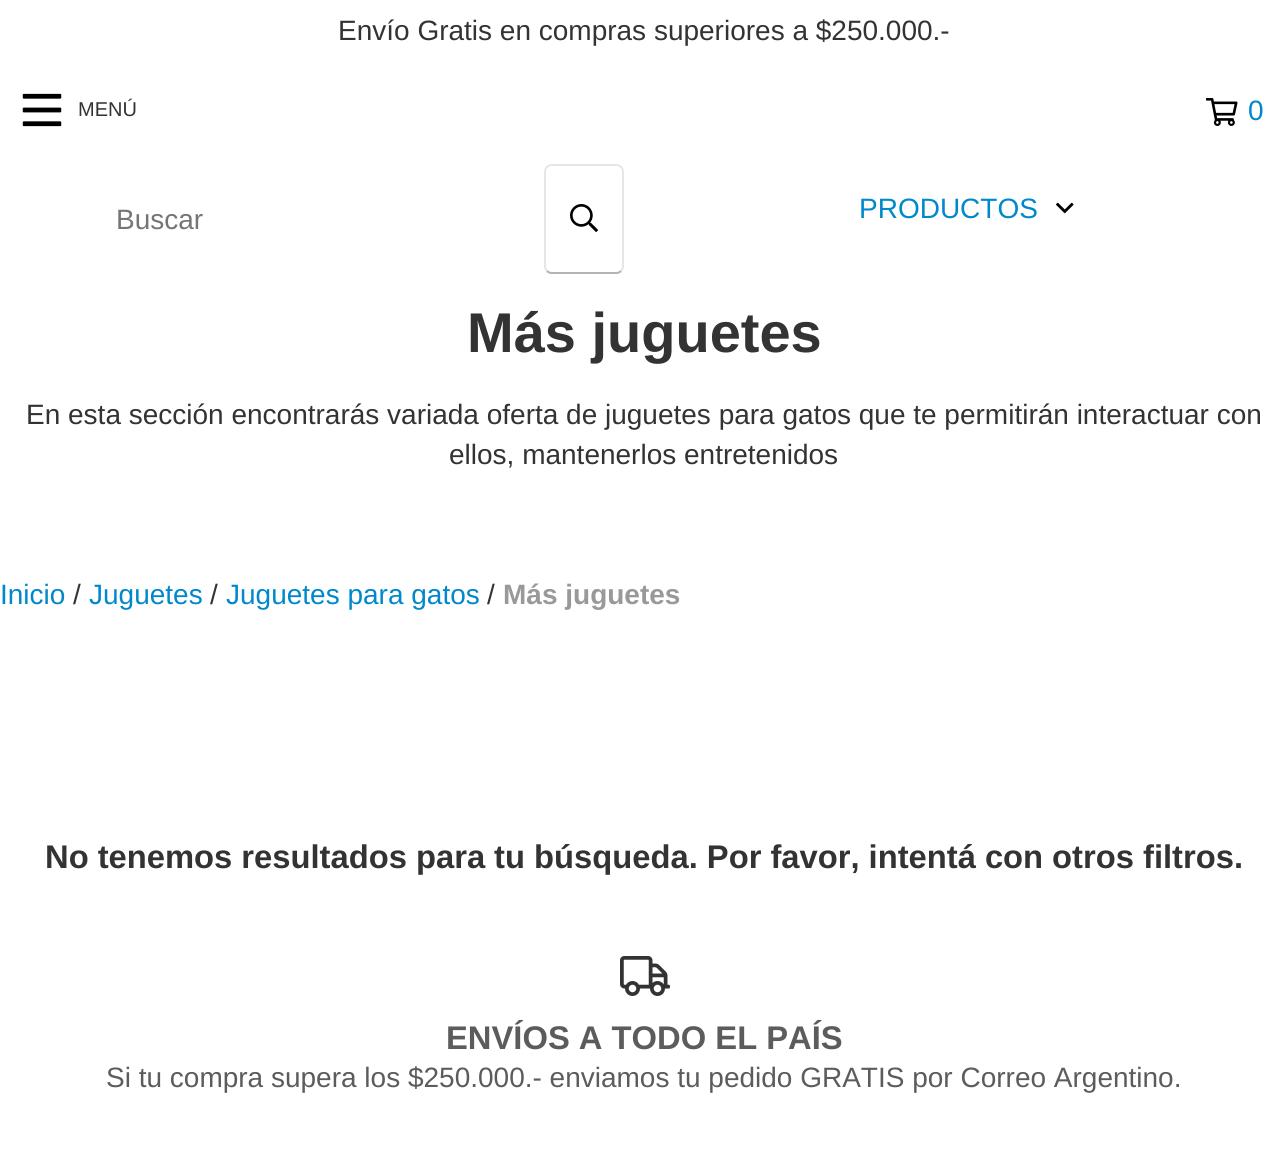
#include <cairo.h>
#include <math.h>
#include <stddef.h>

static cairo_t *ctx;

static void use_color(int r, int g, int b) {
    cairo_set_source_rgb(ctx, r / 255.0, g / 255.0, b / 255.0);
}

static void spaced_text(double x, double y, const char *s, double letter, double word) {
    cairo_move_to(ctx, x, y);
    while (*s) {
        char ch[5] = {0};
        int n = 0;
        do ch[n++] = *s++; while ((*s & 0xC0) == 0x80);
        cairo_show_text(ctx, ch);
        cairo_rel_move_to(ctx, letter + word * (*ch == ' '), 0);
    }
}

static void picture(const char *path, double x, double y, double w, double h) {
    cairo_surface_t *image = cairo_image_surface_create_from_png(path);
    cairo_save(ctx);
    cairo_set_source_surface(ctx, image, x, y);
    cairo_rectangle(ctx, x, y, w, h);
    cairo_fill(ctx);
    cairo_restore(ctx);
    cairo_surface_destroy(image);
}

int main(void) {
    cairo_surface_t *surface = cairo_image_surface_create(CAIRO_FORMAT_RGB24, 1287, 1150);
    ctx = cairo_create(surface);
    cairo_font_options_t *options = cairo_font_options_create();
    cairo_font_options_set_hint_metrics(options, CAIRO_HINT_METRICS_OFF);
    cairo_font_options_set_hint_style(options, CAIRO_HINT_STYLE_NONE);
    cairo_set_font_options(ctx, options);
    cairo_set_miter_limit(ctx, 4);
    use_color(255, 255, 255);
    cairo_paint(ctx);
    cairo_select_font_face(ctx, "Liberation Sans", CAIRO_FONT_SLANT_NORMAL, CAIRO_FONT_WEIGHT_NORMAL);
    cairo_set_font_size(ctx, 28);
    use_color(51, 51, 51);
    cairo_move_to(ctx, 338, 40);
    cairo_show_text(ctx, "Envío Gratis en compras superiores a $250.000.-");
    picture("img1.png", 22, 93, 40, 34);
    cairo_set_font_size(ctx, 20);
    cairo_move_to(ctx, 78, 116);
    cairo_show_text(ctx, "MENÚ");
    picture("img2.png", 1206, 98, 32, 28);
    cairo_set_font_size(ctx, 28);
    use_color(0, 136, 204);
    spaced_text(1248, 120, "0", 2, 0);
    use_color(117, 117, 117);
    cairo_move_to(ctx, 116, 229);
    cairo_show_text(ctx, "Buscar");
    cairo_new_path(ctx);
    cairo_move_to(ctx, 621, 271);
    cairo_curve_to(ctx, 619.5, 272.5, 618, 273, 616, 273);
    cairo_line_to(ctx, 552, 273);
    cairo_curve_to(ctx, 550, 273, 548.5, 272.5, 547, 271);
    use_color(179, 179, 179);
    cairo_stroke(ctx);
    cairo_new_path(ctx);
    cairo_move_to(ctx, 547, 271);
    cairo_curve_to(ctx, 545.5, 269.5, 545, 268, 545, 266);
    cairo_line_to(ctx, 545, 172);
    cairo_curve_to(ctx, 545, 170, 545.5, 168.5, 547, 167);
    cairo_curve_to(ctx, 548.5, 165.5, 550, 165, 552, 165);
    cairo_line_to(ctx, 616, 165);
    cairo_curve_to(ctx, 618, 165, 619.5, 165.5, 621, 167);
    cairo_curve_to(ctx, 622.5, 168.5, 623, 170, 623, 172);
    cairo_line_to(ctx, 623, 266);
    cairo_curve_to(ctx, 623, 268, 622.5, 269.5, 621, 271);
    cairo_set_source_rgba(ctx, 0, 0, 0, 0.1);
    cairo_stroke(ctx);
    picture("img3.png", 570, 204, 28, 28);
    use_color(0, 136, 204);
    cairo_move_to(ctx, 859, 218);
    cairo_show_text(ctx, "PRODUCTOS");
    picture("img4.png", 1056, 202, 18, 12);
    cairo_select_font_face(ctx, "Liberation Sans", CAIRO_FONT_SLANT_NORMAL, CAIRO_FONT_WEIGHT_BOLD);
    cairo_set_font_size(ctx, 56);
    use_color(51, 51, 51);
    cairo_move_to(ctx, 467, 352);
    cairo_show_text(ctx, "Más juguetes");
    cairo_select_font_face(ctx, "Liberation Sans", CAIRO_FONT_SLANT_NORMAL, CAIRO_FONT_WEIGHT_NORMAL);
    cairo_set_font_size(ctx, 28);
    cairo_move_to(ctx, 26, 424);
    cairo_show_text(ctx, "En esta sección encontrarás variada oferta de juguetes para gatos que te permitirán interactuar con");
    cairo_move_to(ctx, 449, 464);
    cairo_show_text(ctx, "ellos, mantenerlos entretenidos");
    use_color(0, 136, 204);
    cairo_move_to(ctx, 0, 604);
    cairo_show_text(ctx, "Inicio");
    use_color(51, 51, 51);
    cairo_move_to(ctx, 73, 604);
    cairo_show_text(ctx, "/");
    use_color(0, 136, 204);
    cairo_move_to(ctx, 89, 604);
    cairo_show_text(ctx, "Juguetes");
    use_color(51, 51, 51);
    cairo_move_to(ctx, 210, 604);
    cairo_show_text(ctx, "/");
    use_color(0, 136, 204);
    cairo_move_to(ctx, 226, 604);
    cairo_show_text(ctx, "Juguetes para gatos");
    use_color(51, 51, 51);
    cairo_move_to(ctx, 487, 604);
    cairo_show_text(ctx, "/");
    cairo_select_font_face(ctx, "Liberation Sans", CAIRO_FONT_SLANT_NORMAL, CAIRO_FONT_WEIGHT_BOLD);
    use_color(153, 153, 153);
    cairo_move_to(ctx, 503, 604);
    cairo_show_text(ctx, "Más juguetes");
    cairo_set_font_size(ctx, 32.75);
    use_color(51, 51, 51);
    spaced_text(45, 868, "No tenemos resultados para tu búsqueda. Por favor, intentá con otros filtros.", 0, -0.1);
    picture("img5.png", 620, 956, 50, 40);
    use_color(92, 92, 92);
    cairo_move_to(ctx, 446, 1049);
    cairo_show_text(ctx, "ENVÍOS A TODO EL PAÍS");
    cairo_select_font_face(ctx, "Liberation Sans", CAIRO_FONT_SLANT_NORMAL, CAIRO_FONT_WEIGHT_NORMAL);
    cairo_set_font_size(ctx, 28);
    cairo_move_to(ctx, 106, 1087);
    cairo_show_text(ctx, "Si tu compra supera los $250.000.- enviamos tu pedido GRATIS por Correo Argentino.");
    cairo_surface_write_to_png(surface, "result.png");
    cairo_font_options_destroy(options);
    cairo_destroy(ctx);
    cairo_surface_destroy(surface);
    return 0;
}
